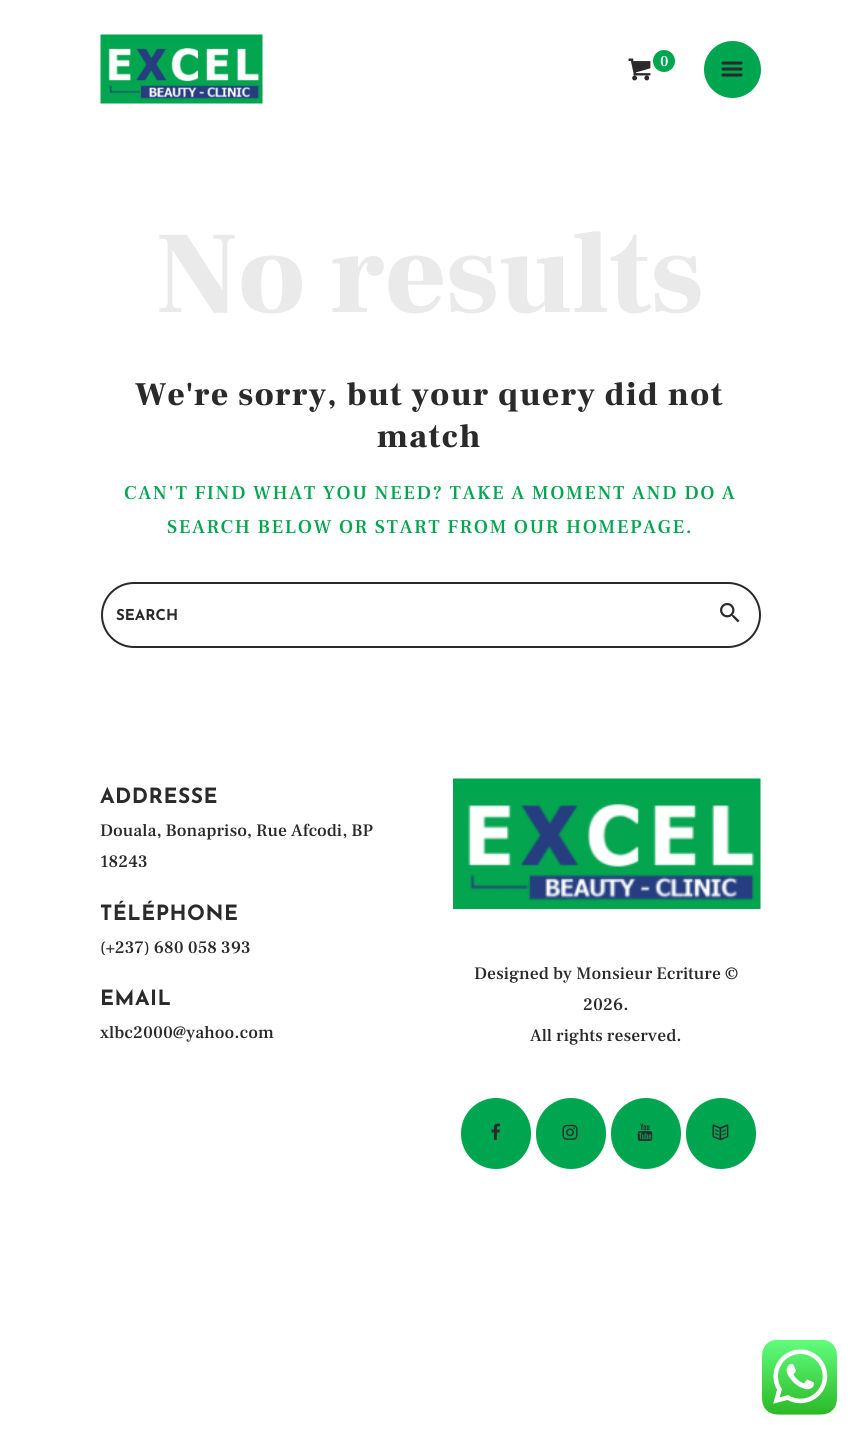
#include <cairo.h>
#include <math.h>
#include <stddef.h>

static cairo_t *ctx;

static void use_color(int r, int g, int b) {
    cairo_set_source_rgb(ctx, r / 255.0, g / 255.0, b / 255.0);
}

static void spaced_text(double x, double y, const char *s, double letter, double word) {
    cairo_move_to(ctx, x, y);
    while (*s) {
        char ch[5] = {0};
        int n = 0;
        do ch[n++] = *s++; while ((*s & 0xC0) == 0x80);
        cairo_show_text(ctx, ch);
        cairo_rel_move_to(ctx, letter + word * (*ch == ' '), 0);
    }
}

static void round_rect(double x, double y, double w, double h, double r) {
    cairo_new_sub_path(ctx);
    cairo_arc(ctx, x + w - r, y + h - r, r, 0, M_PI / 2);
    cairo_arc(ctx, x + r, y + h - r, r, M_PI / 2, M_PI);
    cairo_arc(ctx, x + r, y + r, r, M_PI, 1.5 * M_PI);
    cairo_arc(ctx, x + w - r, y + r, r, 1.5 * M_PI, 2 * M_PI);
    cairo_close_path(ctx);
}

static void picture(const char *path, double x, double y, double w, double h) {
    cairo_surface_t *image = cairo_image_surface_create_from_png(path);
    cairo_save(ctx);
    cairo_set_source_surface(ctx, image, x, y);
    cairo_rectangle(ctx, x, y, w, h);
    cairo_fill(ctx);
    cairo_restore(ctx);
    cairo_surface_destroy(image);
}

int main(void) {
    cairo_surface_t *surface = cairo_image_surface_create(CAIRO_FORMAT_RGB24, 859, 1437);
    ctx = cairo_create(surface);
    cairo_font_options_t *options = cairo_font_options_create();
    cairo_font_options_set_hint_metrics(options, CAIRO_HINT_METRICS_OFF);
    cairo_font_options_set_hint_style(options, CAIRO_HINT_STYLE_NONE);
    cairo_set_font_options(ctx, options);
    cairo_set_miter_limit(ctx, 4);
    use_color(255, 255, 255);
    cairo_paint(ctx);
    picture("img1.png", 100, 34, 163, 70);
    picture("img2.png", 628, 58, 23, 23);
    use_color(0, 165, 79);
    cairo_arc(ctx, 664, 61, 11, 0, 2 * M_PI);
    cairo_fill(ctx);
    cairo_select_font_face(ctx, "Frank Ruhl Libre Medium", CAIRO_FONT_SLANT_NORMAL, CAIRO_FONT_WEIGHT_NORMAL);
    cairo_set_font_size(ctx, 15);
    use_color(255, 255, 255);
    cairo_move_to(ctx, 660, 66);
    cairo_show_text(ctx, "0");
    use_color(0, 165, 79);
    cairo_new_path(ctx);
    cairo_arc(ctx, 732.5, 69.5, 28.5, 0, 2 * M_PI);
    cairo_fill(ctx);
    picture("img3.png", 721, 61, 22, 16);
    cairo_select_font_face(ctx, "Frank Ruhl Libre Black", CAIRO_FONT_SLANT_NORMAL, CAIRO_FONT_WEIGHT_NORMAL);
    cairo_set_font_size(ctx, 117);
    use_color(234, 234, 234);
    cairo_move_to(ctx, 156, 312);
    cairo_show_text(ctx, "No results");
    cairo_set_font_size(ctx, 33);
    use_color(42, 42, 42);
    spaced_text(135, 405, "We're sorry, but your query did not", 1.5, 0);
    spaced_text(377, 447, "match", 1.5, 0);
    cairo_select_font_face(ctx, "Frank Ruhl Libre Medium", CAIRO_FONT_SLANT_NORMAL, CAIRO_FONT_WEIGHT_NORMAL);
    cairo_set_font_size(ctx, 19.5);
    use_color(0, 165, 79);
    spaced_text(124, 499, "CAN'T FIND WHAT YOU NEED? TAKE A MOMENT AND DO A", 1.5, 0);
    spaced_text(167, 533, "SEARCH BELOW OR START FROM OUR HOMEPAGE.", 1.5, 0);
    round_rect(102, 583, 658, 64, 32);
    use_color(42, 42, 42);
    cairo_stroke(ctx);
    cairo_select_font_face(ctx, "Josefin Sans", CAIRO_FONT_SLANT_NORMAL, CAIRO_FONT_WEIGHT_BOLD);
    cairo_set_font_size(ctx, 15);
    cairo_move_to(ctx, 116, 620);
    cairo_show_text(ctx, "SEARCH");
    picture("img4.png", 720, 602, 20, 21);
    cairo_set_font_size(ctx, 21);
    spaced_text(100, 803, "ADDRESSE", 0.5, 0);
    cairo_select_font_face(ctx, "Frank Ruhl Libre Medium", CAIRO_FONT_SLANT_NORMAL, CAIRO_FONT_WEIGHT_NORMAL);
    cairo_set_font_size(ctx, 17.5);
    cairo_move_to(ctx, 100, 836);
    cairo_show_text(ctx, "Douala, Bonapriso, Rue Afcodi, BP");
    cairo_move_to(ctx, 100, 867);
    cairo_show_text(ctx, "18243");
    cairo_select_font_face(ctx, "Josefin Sans", CAIRO_FONT_SLANT_NORMAL, CAIRO_FONT_WEIGHT_BOLD);
    cairo_set_font_size(ctx, 21);
    spaced_text(100, 920, "TÉLÉPHONE", 0.5, 0);
    cairo_select_font_face(ctx, "Frank Ruhl Libre Medium", CAIRO_FONT_SLANT_NORMAL, CAIRO_FONT_WEIGHT_NORMAL);
    cairo_set_font_size(ctx, 17.5);
    cairo_move_to(ctx, 100, 953);
    cairo_show_text(ctx, "(+237) 680 058 393");
    cairo_select_font_face(ctx, "Josefin Sans", CAIRO_FONT_SLANT_NORMAL, CAIRO_FONT_WEIGHT_BOLD);
    cairo_set_font_size(ctx, 21);
    spaced_text(100, 1005, "EMAIL", 0.5, 0);
    cairo_select_font_face(ctx, "Frank Ruhl Libre Medium", CAIRO_FONT_SLANT_NORMAL, CAIRO_FONT_WEIGHT_NORMAL);
    cairo_set_font_size(ctx, 17.5);
    cairo_move_to(ctx, 100, 1038);
    cairo_show_text(ctx, "xlbc2000@yahoo.com");
    picture("img5.png", 453, 778, 308, 131);
    cairo_move_to(ctx, 474, 979);
    cairo_show_text(ctx, "Designed by Monsieur Ecriture ©");
    cairo_move_to(ctx, 583, 1010);
    cairo_show_text(ctx, "2026.");
    cairo_move_to(ctx, 530, 1041);
    cairo_show_text(ctx, "All rights reserved.");
    use_color(0, 165, 79);
    round_rect(461, 1098, 70, 71, 35);
    cairo_fill(ctx);
    picture("img6.png", 491, 1123, 9, 17);
    round_rect(536, 1098, 70, 71, 35);
    cairo_fill(ctx);
    picture("img7.png", 562, 1124, 16, 16);
    round_rect(611, 1098, 70, 71, 35);
    cairo_fill(ctx);
    picture("img8.png", 637, 1123, 16, 19);
    round_rect(686, 1098, 70, 71, 35);
    cairo_fill(ctx);
    picture("img9.png", 712, 1124, 17, 17);
    picture("img10.png", 762, 1340, 75, 75);
    cairo_surface_write_to_png(surface, "result.png");
    cairo_font_options_destroy(options);
    cairo_destroy(ctx);
    cairo_surface_destroy(surface);
    return 0;
}
